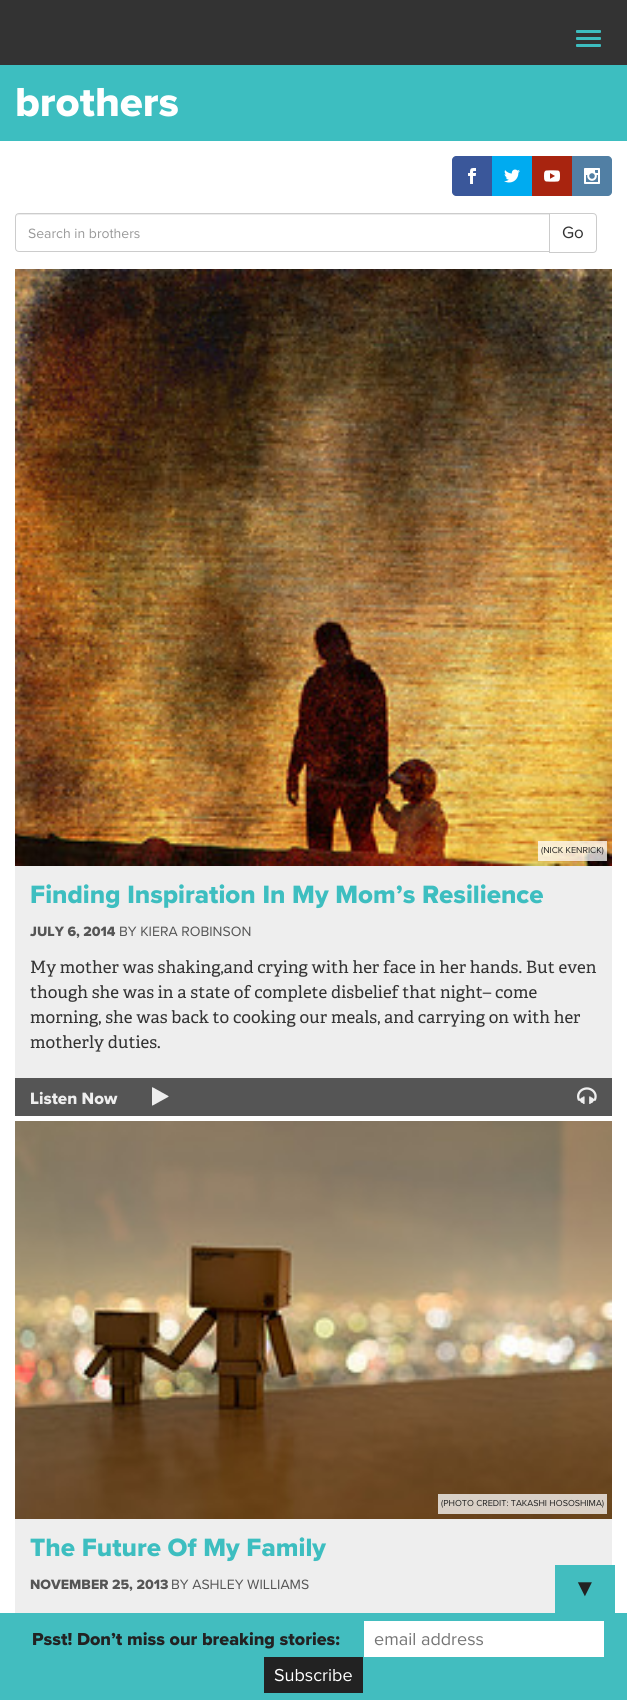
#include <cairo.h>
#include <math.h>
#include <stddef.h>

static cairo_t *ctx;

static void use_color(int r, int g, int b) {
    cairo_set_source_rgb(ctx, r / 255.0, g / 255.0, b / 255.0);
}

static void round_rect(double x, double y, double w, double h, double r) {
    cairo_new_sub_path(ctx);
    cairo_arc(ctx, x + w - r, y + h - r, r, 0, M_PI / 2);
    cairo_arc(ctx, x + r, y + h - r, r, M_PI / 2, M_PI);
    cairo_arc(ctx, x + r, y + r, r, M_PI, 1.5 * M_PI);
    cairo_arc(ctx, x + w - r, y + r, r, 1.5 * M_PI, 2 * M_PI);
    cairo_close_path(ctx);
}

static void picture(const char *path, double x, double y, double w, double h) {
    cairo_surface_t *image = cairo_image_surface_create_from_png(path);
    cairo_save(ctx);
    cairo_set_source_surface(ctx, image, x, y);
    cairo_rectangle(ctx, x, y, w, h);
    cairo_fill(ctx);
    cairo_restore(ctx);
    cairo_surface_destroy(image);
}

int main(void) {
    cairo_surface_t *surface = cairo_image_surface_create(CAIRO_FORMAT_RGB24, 627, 1700);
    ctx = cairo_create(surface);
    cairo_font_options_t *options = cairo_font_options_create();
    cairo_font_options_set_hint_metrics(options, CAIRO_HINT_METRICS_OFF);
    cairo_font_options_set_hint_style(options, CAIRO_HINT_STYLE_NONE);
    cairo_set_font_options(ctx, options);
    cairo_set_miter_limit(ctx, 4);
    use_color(255, 255, 255);
    cairo_paint(ctx);
    use_color(51, 51, 51);
    cairo_rectangle(ctx, 0, 0, 627, 65);
    cairo_fill(ctx);
    use_color(61, 190, 192);
    round_rect(576, 30, 25, 3, 1);
    cairo_fill(ctx);
    round_rect(576, 37, 25, 3, 1);
    cairo_fill(ctx);
    round_rect(576, 44, 25, 3, 1);
    cairo_fill(ctx);
    cairo_rectangle(ctx, 0, 65, 627, 76);
    cairo_fill(ctx);
    cairo_select_font_face(ctx, "Proxima Nova ExtraBold", CAIRO_FONT_SLANT_NORMAL, CAIRO_FONT_WEIGHT_NORMAL);
    cairo_set_font_size(ctx, 42);
    use_color(255, 255, 255);
    cairo_move_to(ctx, 15, 116);
    cairo_show_text(ctx, "brothers");
    use_color(58, 87, 154);
    cairo_new_path(ctx);
    cairo_move_to(ctx, 456, 156);
    cairo_line_to(ctx, 492, 156);
    cairo_line_to(ctx, 492, 196);
    cairo_line_to(ctx, 456, 196);
    cairo_curve_to(ctx, 454, 196, 452, 194, 452, 192);
    cairo_line_to(ctx, 452, 160);
    cairo_curve_to(ctx, 452, 158, 454, 156, 456, 156);
    cairo_close_path(ctx);
    cairo_fill(ctx);
    picture("img1.png", 468, 168, 8, 16);
    use_color(0, 171, 240);
    cairo_rectangle(ctx, 492, 156, 40, 40);
    cairo_fill(ctx);
    picture("img2.png", 504, 169, 16, 14);
    use_color(168, 36, 15);
    cairo_rectangle(ctx, 532, 156, 40, 40);
    cairo_fill(ctx);
    picture("img3.png", 544, 170, 16, 12);
    use_color(81, 127, 164);
    cairo_new_path(ctx);
    cairo_move_to(ctx, 572, 156);
    cairo_line_to(ctx, 608, 156);
    cairo_curve_to(ctx, 610, 156, 612, 158, 612, 160);
    cairo_line_to(ctx, 612, 192);
    cairo_curve_to(ctx, 612, 194, 610, 196, 608, 196);
    cairo_line_to(ctx, 572, 196);
    cairo_close_path(ctx);
    cairo_fill(ctx);
    picture("img4.png", 584, 168, 16, 16);
    use_color(236, 236, 236);
    cairo_new_path(ctx);
    cairo_move_to(ctx, 19, 215);
    cairo_line_to(ctx, 549, 215);
    cairo_line_to(ctx, 549, 214);
    cairo_line_to(ctx, 19, 214);
    cairo_curve_to(ctx, 17, 214, 16, 216, 16, 218);
    cairo_curve_to(ctx, 16, 216, 17, 215, 19, 215);
    cairo_close_path(ctx);
    cairo_fill(ctx);
    cairo_new_path(ctx);
    cairo_move_to(ctx, 19, 213.5);
    cairo_line_to(ctx, 549.5, 213.5);
    cairo_line_to(ctx, 549.5, 251.5);
    cairo_line_to(ctx, 19, 251.5);
    cairo_curve_to(ctx, 17, 251.5, 15.5, 250, 15.5, 248);
    cairo_line_to(ctx, 15.5, 217);
    cairo_curve_to(ctx, 15.5, 215, 17, 213.5, 19, 213.5);
    cairo_close_path(ctx);
    use_color(204, 204, 204);
    cairo_set_line_width(ctx, 1);
    cairo_stroke(ctx);
    cairo_select_font_face(ctx, "Proxima Nova", CAIRO_FONT_SLANT_NORMAL, CAIRO_FONT_WEIGHT_NORMAL);
    cairo_set_font_size(ctx, 14);
    use_color(153, 153, 153);
    cairo_move_to(ctx, 28, 238);
    cairo_show_text(ctx, "Search in brothers");
    use_color(255, 255, 255);
    cairo_new_path(ctx);
    cairo_move_to(ctx, 549.5, 213.5);
    cairo_line_to(ctx, 593, 213.5);
    cairo_curve_to(ctx, 595, 213.5, 596.5, 215, 596.5, 217);
    cairo_line_to(ctx, 596.5, 249);
    cairo_curve_to(ctx, 596.5, 251, 595, 252.5, 593, 252.5);
    cairo_line_to(ctx, 549.5, 252.5);
    cairo_close_path(ctx);
    cairo_fill_preserve(ctx);
    use_color(204, 204, 204);
    cairo_stroke(ctx);
    cairo_set_font_size(ctx, 17);
    use_color(51, 51, 51);
    cairo_move_to(ctx, 562, 238);
    cairo_show_text(ctx, "Go");
    use_color(238, 238, 238);
    cairo_rectangle(ctx, 15, 866, 597, 212);
    cairo_fill(ctx);
    picture("img5.png", 15, 269, 597, 597);
    cairo_set_source_rgba(ctx, 1, 1, 1, 0.75);
    cairo_rectangle(ctx, 538, 841, 69, 20);
    cairo_fill(ctx);
    cairo_set_font_size(ctx, 9);
    use_color(34, 34, 34);
    cairo_move_to(ctx, 541, 853);
    cairo_show_text(ctx, "(NICK KENRICK)");
    cairo_select_font_face(ctx, "Proxima Nova ExtraBold", CAIRO_FONT_SLANT_NORMAL, CAIRO_FONT_WEIGHT_NORMAL);
    cairo_set_font_size(ctx, 26);
    use_color(61, 190, 192);
    cairo_move_to(ctx, 30, 903);
    cairo_show_text(ctx, "Finding Inspiration In My Mom’s Resilience");
    cairo_set_font_size(ctx, 14);
    use_color(85, 85, 85);
    cairo_move_to(ctx, 30, 936);
    cairo_show_text(ctx, "JULY 6, 2014");
    cairo_select_font_face(ctx, "Proxima Nova", CAIRO_FONT_SLANT_NORMAL, CAIRO_FONT_WEIGHT_NORMAL);
    cairo_move_to(ctx, 119, 936);
    cairo_show_text(ctx, "BY KIERA ROBINSON");
    cairo_select_font_face(ctx, "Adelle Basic", CAIRO_FONT_SLANT_NORMAL, CAIRO_FONT_WEIGHT_NORMAL);
    cairo_set_font_size(ctx, 17);
    use_color(51, 51, 51);
    cairo_move_to(ctx, 30, 973);
    cairo_show_text(ctx, "My mother was shaking,and crying with her face in her hands. But even");
    cairo_move_to(ctx, 30, 998);
    cairo_show_text(ctx, "though she was in a state of complete disbelief that night– come");
    cairo_move_to(ctx, 30, 1023);
    cairo_show_text(ctx, "morning, she was back to cooking our meals, and carrying on with her");
    cairo_move_to(ctx, 30, 1048);
    cairo_show_text(ctx, "motherly duties.");
    use_color(85, 85, 85);
    cairo_rectangle(ctx, 15, 1078, 597, 38);
    cairo_fill(ctx);
    cairo_select_font_face(ctx, "Proxima Nova ExtraBold", CAIRO_FONT_SLANT_NORMAL, CAIRO_FONT_WEIGHT_NORMAL);
    use_color(238, 238, 238);
    cairo_move_to(ctx, 30, 1104);
    cairo_show_text(ctx, "Listen Now");
    picture("img6.png", 152, 1087, 17, 19);
    picture("img7.png", 577, 1087, 20, 17);
    cairo_rectangle(ctx, 15, 1519, 597, 94);
    cairo_fill(ctx);
    picture("img8.png", 15, 1121, 597, 398);
    cairo_set_source_rgba(ctx, 1, 1, 1, 0.75);
    cairo_rectangle(ctx, 438, 1494, 169, 20);
    cairo_fill(ctx);
    cairo_select_font_face(ctx, "Proxima Nova", CAIRO_FONT_SLANT_NORMAL, CAIRO_FONT_WEIGHT_NORMAL);
    cairo_set_font_size(ctx, 9);
    use_color(34, 34, 34);
    cairo_move_to(ctx, 441, 1506);
    cairo_show_text(ctx, "(PHOTO CREDIT: TAKASHI HOSOSHIMA)");
    cairo_select_font_face(ctx, "Proxima Nova ExtraBold", CAIRO_FONT_SLANT_NORMAL, CAIRO_FONT_WEIGHT_NORMAL);
    cairo_set_font_size(ctx, 26);
    use_color(61, 190, 192);
    cairo_move_to(ctx, 30, 1556);
    cairo_show_text(ctx, "The Future Of My Family");
    cairo_set_font_size(ctx, 14);
    use_color(85, 85, 85);
    cairo_move_to(ctx, 30, 1589);
    cairo_show_text(ctx, "NOVEMBER 25, 2013");
    cairo_select_font_face(ctx, "Proxima Nova", CAIRO_FONT_SLANT_NORMAL, CAIRO_FONT_WEIGHT_NORMAL);
    cairo_move_to(ctx, 171, 1589);
    cairo_show_text(ctx, "BY ASHLEY WILLIAMS");
    use_color(66, 189, 191);
    cairo_rectangle(ctx, 555, 1565, 60, 48);
    cairo_fill(ctx);
    cairo_select_font_face(ctx, "Liberation Sans", CAIRO_FONT_SLANT_NORMAL, CAIRO_FONT_WEIGHT_NORMAL);
    cairo_set_font_size(ctx, 24);
    use_color(34, 34, 34);
    cairo_move_to(ctx, 573, 1596);
    cairo_show_text(ctx, "▼");
    use_color(66, 189, 191);
    cairo_rectangle(ctx, 0, 1613, 627, 87);
    cairo_fill(ctx);
    cairo_select_font_face(ctx, "Proxima Nova ExtraBold", CAIRO_FONT_SLANT_NORMAL, CAIRO_FONT_WEIGHT_NORMAL);
    cairo_set_font_size(ctx, 18);
    use_color(34, 34, 34);
    cairo_move_to(ctx, 32, 1645);
    cairo_show_text(ctx, "Psst! Don’t miss our breaking stories:");
    use_color(255, 255, 255);
    cairo_rectangle(ctx, 364, 1621, 240, 36);
    cairo_fill(ctx);
    cairo_select_font_face(ctx, "Proxima Nova", CAIRO_FONT_SLANT_NORMAL, CAIRO_FONT_WEIGHT_NORMAL);
    use_color(117, 117, 117);
    cairo_move_to(ctx, 374, 1645);
    cairo_show_text(ctx, "email address");
    use_color(34, 34, 34);
    cairo_rectangle(ctx, 264, 1657, 99, 36);
    cairo_fill(ctx);
    use_color(255, 255, 255);
    cairo_move_to(ctx, 274, 1681);
    cairo_show_text(ctx, "Subscribe");
    cairo_surface_write_to_png(surface, "result.png");
    cairo_font_options_destroy(options);
    cairo_destroy(ctx);
    cairo_surface_destroy(surface);
    return 0;
}
